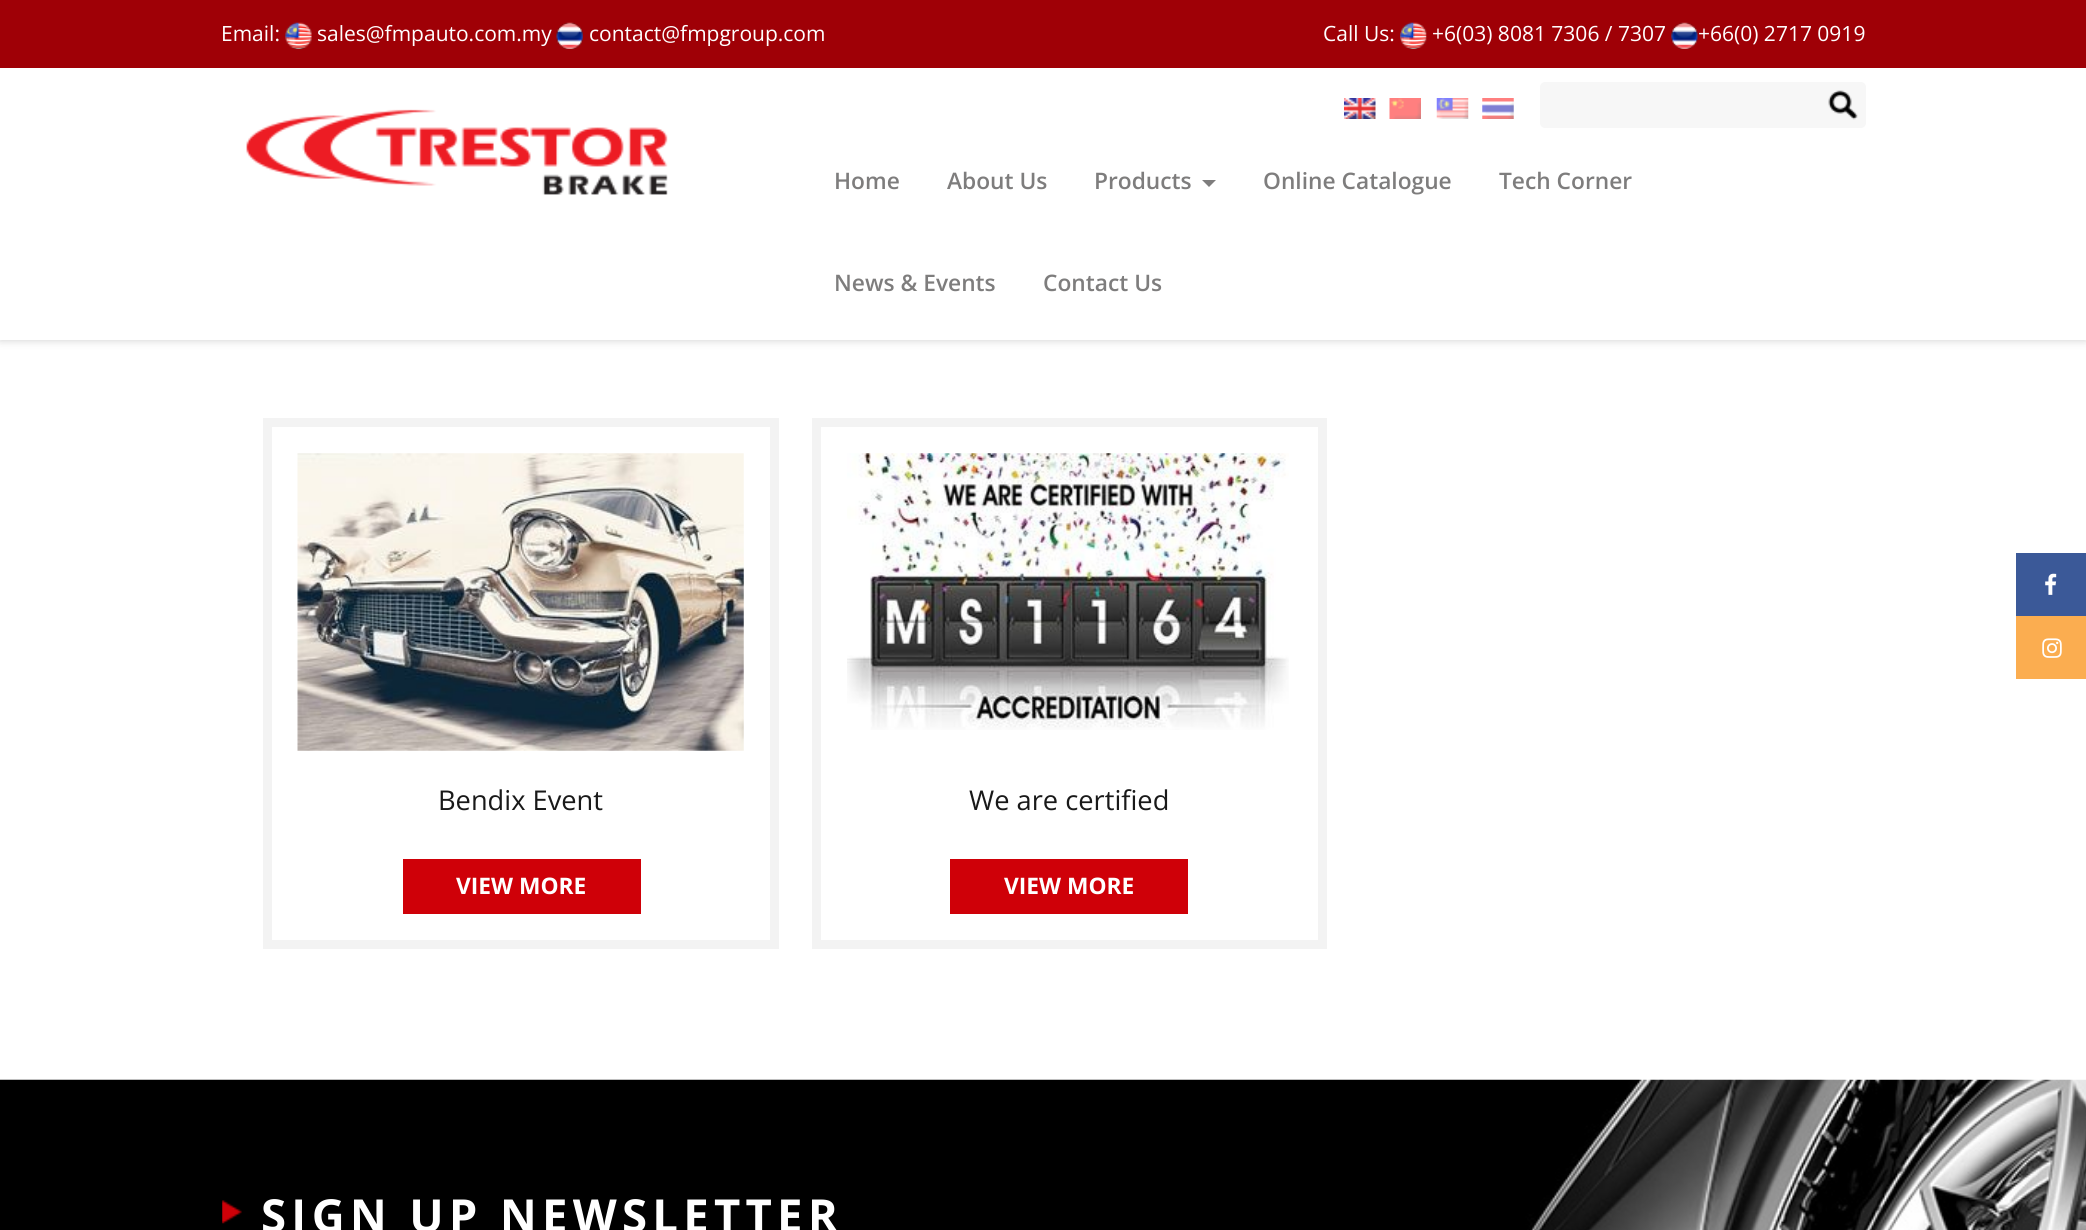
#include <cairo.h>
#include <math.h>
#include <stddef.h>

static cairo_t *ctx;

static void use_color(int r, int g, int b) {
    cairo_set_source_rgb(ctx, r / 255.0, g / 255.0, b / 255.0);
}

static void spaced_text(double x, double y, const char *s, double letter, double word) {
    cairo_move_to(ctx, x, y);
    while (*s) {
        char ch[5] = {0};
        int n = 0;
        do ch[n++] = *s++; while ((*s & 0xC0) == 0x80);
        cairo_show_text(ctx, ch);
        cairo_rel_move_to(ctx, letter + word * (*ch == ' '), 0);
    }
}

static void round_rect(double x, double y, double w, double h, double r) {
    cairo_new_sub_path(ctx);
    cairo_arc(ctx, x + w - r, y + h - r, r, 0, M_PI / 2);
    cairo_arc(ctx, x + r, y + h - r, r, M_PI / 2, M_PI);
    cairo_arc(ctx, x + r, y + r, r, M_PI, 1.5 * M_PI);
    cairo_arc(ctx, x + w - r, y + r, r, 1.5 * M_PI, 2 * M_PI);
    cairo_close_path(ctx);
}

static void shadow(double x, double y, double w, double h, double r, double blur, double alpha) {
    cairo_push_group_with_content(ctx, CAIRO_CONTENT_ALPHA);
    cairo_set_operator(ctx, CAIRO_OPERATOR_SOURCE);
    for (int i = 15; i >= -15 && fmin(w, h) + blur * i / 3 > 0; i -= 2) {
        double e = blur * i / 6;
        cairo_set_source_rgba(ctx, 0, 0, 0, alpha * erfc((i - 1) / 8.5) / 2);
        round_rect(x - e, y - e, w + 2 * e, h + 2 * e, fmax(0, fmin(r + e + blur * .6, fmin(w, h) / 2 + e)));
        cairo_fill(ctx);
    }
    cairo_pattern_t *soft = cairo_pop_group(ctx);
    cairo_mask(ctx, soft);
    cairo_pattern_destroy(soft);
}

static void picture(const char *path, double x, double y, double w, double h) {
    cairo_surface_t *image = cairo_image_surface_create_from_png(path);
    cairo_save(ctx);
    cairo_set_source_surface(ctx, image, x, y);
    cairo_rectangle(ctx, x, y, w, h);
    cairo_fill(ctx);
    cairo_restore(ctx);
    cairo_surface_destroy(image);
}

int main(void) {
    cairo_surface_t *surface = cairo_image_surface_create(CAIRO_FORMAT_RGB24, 2086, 1230);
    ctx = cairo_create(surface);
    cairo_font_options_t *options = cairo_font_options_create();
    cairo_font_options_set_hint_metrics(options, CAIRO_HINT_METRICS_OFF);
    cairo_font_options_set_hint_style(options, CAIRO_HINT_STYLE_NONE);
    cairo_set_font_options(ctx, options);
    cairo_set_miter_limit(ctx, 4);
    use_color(255, 255, 255);
    cairo_paint(ctx);
    use_color(0, 0, 0);
    shadow(0, 0, 2086, 340, 0, 4.5, 0.2);
    use_color(159, 0, 6);
    cairo_rectangle(ctx, 0, 0, 2086, 68);
    cairo_fill(ctx);
    cairo_select_font_face(ctx, "Open Sans", CAIRO_FONT_SLANT_NORMAL, CAIRO_FONT_WEIGHT_NORMAL);
    cairo_set_font_size(ctx, 21);
    use_color(255, 255, 255);
    cairo_move_to(ctx, 221, 41);
    cairo_show_text(ctx, "Email:");
    picture("img1.png", 285, 22, 27, 27);
    cairo_move_to(ctx, 317, 41);
    cairo_show_text(ctx, "sales@fmpauto.com.my");
    picture("img2.png", 556, 22, 27, 27);
    cairo_move_to(ctx, 589, 41);
    cairo_show_text(ctx, "contact@fmpgroup.com");
    cairo_move_to(ctx, 1323, 41);
    cairo_show_text(ctx, "Call Us:");
    picture("img3.png", 1400, 22, 27, 27);
    cairo_move_to(ctx, 1432, 41);
    cairo_show_text(ctx, "+6(03) 8081 7306 / 7307");
    picture("img4.png", 1671, 22, 27, 27);
    cairo_move_to(ctx, 1698, 41);
    cairo_show_text(ctx, "+66(0) 2717 0919");
    cairo_rectangle(ctx, 0, 68, 2086, 272);
    cairo_fill(ctx);
    picture("img5.png", 246, 109, 422, 86);
    picture("img6.png", 1344, 98, 32, 21);
    picture("img7.png", 1389, 98, 32, 21);
    picture("img8.png", 1436, 98, 33, 21);
    picture("img9.png", 1482, 98, 32, 21);
    use_color(247, 247, 247);
    round_rect(1540, 82, 326, 46, 5);
    cairo_fill(ctx);
    picture("img10.png", 1828, 90, 30, 30);
    cairo_select_font_face(ctx, "Open Sans SemiBold", CAIRO_FONT_SLANT_NORMAL, CAIRO_FONT_WEIGHT_NORMAL);
    cairo_set_font_size(ctx, 22.75);
    use_color(126, 125, 125);
    cairo_move_to(ctx, 834, 189);
    cairo_show_text(ctx, "Home");
    cairo_move_to(ctx, 947, 189);
    cairo_show_text(ctx, "About Us");
    cairo_move_to(ctx, 1094, 189);
    cairo_show_text(ctx, "Products");
    cairo_new_path(ctx);
    cairo_move_to(ctx, 1202, 180);
    cairo_line_to(ctx, 1216, 180);
    cairo_line_to(ctx, 1209, 187);
    cairo_close_path(ctx);
    cairo_fill(ctx);
    cairo_move_to(ctx, 1263, 189);
    cairo_show_text(ctx, "Online Catalogue");
    cairo_move_to(ctx, 1499, 189);
    cairo_show_text(ctx, "Tech Corner");
    cairo_move_to(ctx, 834, 291);
    cairo_show_text(ctx, "News & Events");
    cairo_move_to(ctx, 1043, 291);
    cairo_show_text(ctx, "Contact Us");
    cairo_rectangle(ctx, 267.5, 422.5, 507, 522);
    use_color(243, 243, 243);
    cairo_set_line_width(ctx, 9);
    cairo_stroke(ctx);
    picture("img11.png", 297, 453, 447, 298);
    cairo_select_font_face(ctx, "Open Sans", CAIRO_FONT_SLANT_NORMAL, CAIRO_FONT_WEIGHT_NORMAL);
    cairo_set_font_size(ctx, 27.25);
    use_color(25, 25, 25);
    cairo_move_to(ctx, 438, 810);
    cairo_show_text(ctx, "Bendix Event");
    use_color(207, 0, 8);
    cairo_rectangle(ctx, 403, 859, 238, 55);
    cairo_fill(ctx);
    cairo_select_font_face(ctx, "Open Sans", CAIRO_FONT_SLANT_NORMAL, CAIRO_FONT_WEIGHT_BOLD);
    cairo_set_font_size(ctx, 22.75);
    use_color(255, 255, 255);
    cairo_move_to(ctx, 456, 894);
    cairo_show_text(ctx, "VIEW MORE");
    cairo_rectangle(ctx, 816.5, 422.5, 506, 522);
    use_color(243, 243, 243);
    cairo_stroke(ctx);
    picture("img12.png", 847, 453, 442, 277);
    cairo_select_font_face(ctx, "Open Sans", CAIRO_FONT_SLANT_NORMAL, CAIRO_FONT_WEIGHT_NORMAL);
    cairo_set_font_size(ctx, 27.25);
    use_color(25, 25, 25);
    cairo_move_to(ctx, 969, 810);
    cairo_show_text(ctx, "We are certified");
    use_color(207, 0, 8);
    cairo_rectangle(ctx, 950, 859, 238, 55);
    cairo_fill(ctx);
    cairo_select_font_face(ctx, "Open Sans", CAIRO_FONT_SLANT_NORMAL, CAIRO_FONT_WEIGHT_BOLD);
    cairo_set_font_size(ctx, 22.75);
    use_color(255, 255, 255);
    cairo_move_to(ctx, 1004, 894);
    cairo_show_text(ctx, "VIEW MORE");
    picture("img13.png", 0, 1079, 2086, 151);
    picture("img14.png", 222, 1200, 20, 24);
    cairo_set_font_size(ctx, 45.5);
    spaced_text(261, 1232, "SIGN UP NEWSLETTER", 5.25, 0);
    use_color(59, 89, 152);
    cairo_rectangle(ctx, 2016, 553, 70, 63);
    cairo_fill(ctx);
    picture("img15.png", 2045, 573, 12, 22);
    use_color(251, 173, 80);
    cairo_rectangle(ctx, 2016, 616, 70, 63);
    cairo_fill(ctx);
    picture("img16.png", 2042, 638, 20, 20);
    cairo_surface_write_to_png(surface, "result.png");
    cairo_font_options_destroy(options);
    cairo_destroy(ctx);
    cairo_surface_destroy(surface);
    return 0;
}
